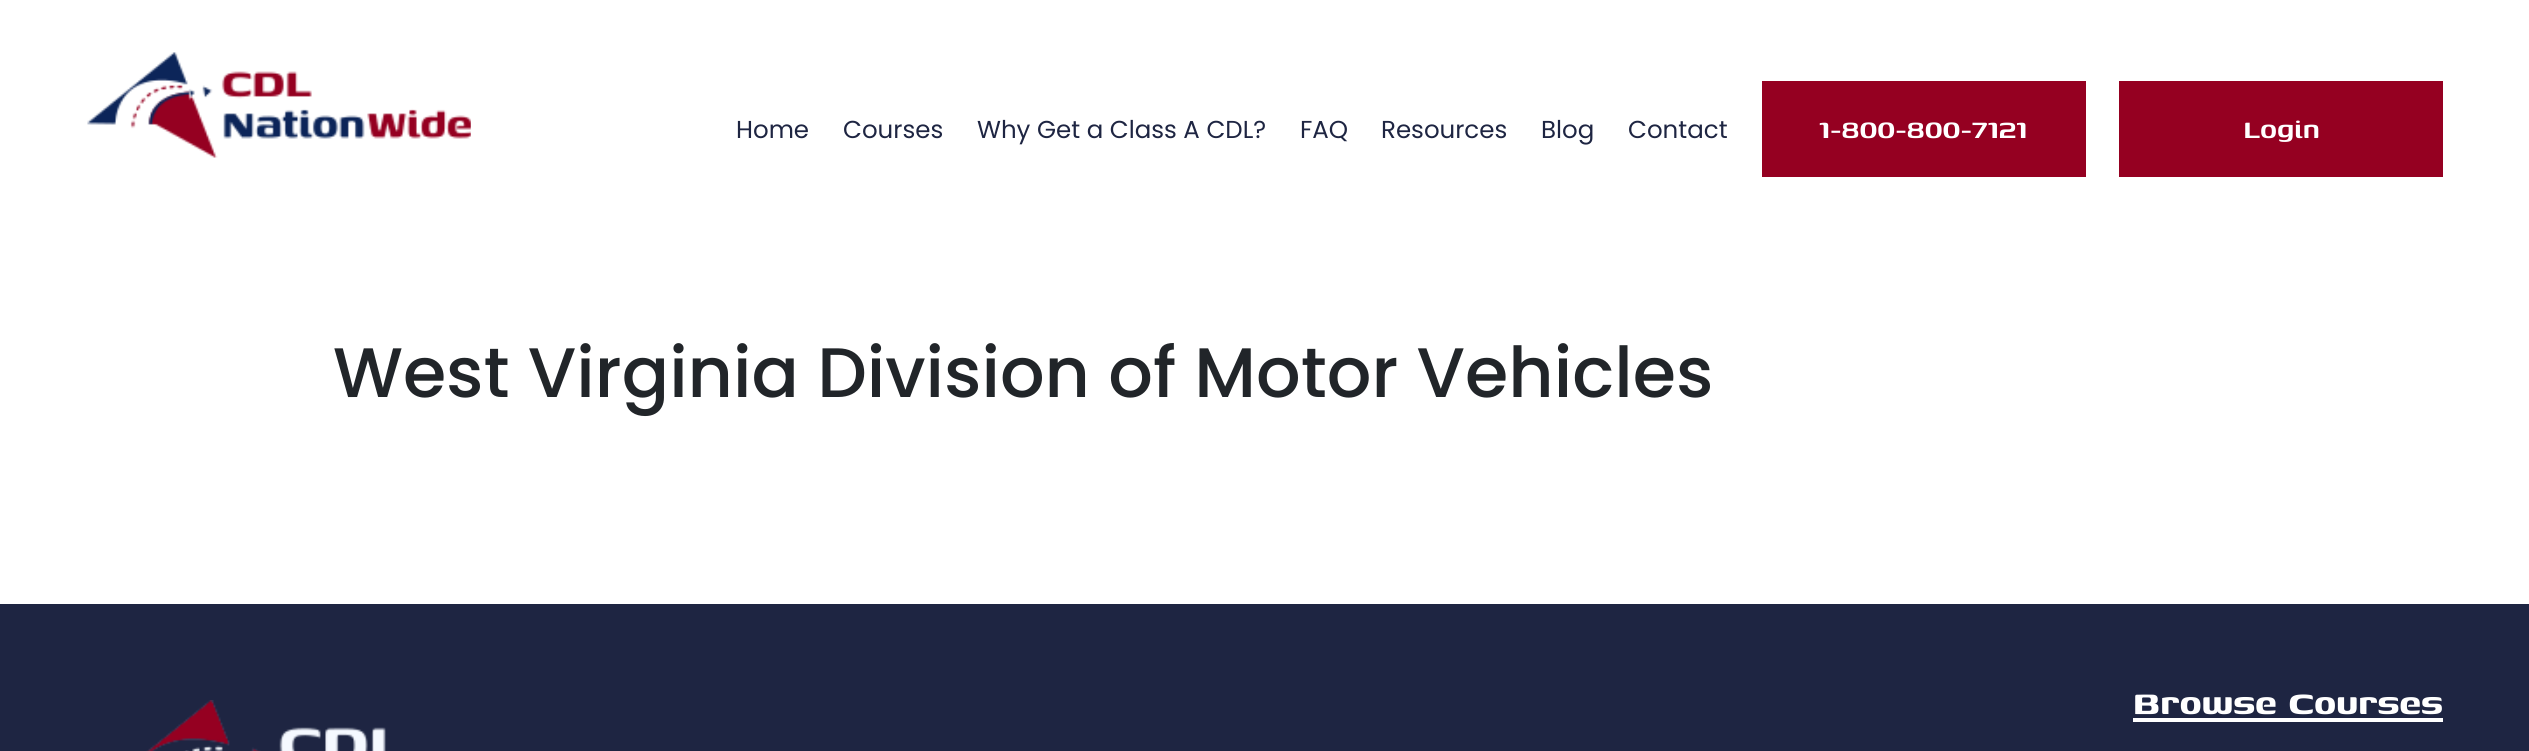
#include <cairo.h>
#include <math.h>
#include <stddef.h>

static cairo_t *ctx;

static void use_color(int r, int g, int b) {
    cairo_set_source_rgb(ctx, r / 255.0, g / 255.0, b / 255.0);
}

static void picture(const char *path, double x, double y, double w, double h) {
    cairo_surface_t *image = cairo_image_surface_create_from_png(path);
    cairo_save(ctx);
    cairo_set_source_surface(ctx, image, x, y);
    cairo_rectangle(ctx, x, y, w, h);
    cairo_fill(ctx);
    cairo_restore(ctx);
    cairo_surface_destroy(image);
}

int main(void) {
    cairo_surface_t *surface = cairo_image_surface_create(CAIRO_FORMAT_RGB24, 2529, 751);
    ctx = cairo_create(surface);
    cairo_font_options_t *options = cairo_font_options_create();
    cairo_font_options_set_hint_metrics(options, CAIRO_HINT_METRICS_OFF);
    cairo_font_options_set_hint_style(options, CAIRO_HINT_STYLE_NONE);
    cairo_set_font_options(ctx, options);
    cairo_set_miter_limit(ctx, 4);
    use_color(255, 255, 255);
    cairo_paint(ctx);
    picture("img1.png", 87, 52, 384, 106);
    cairo_select_font_face(ctx, "Poppins", CAIRO_FONT_SLANT_NORMAL, CAIRO_FONT_WEIGHT_NORMAL);
    cairo_set_font_size(ctx, 24.5);
    use_color(30, 37, 66);
    cairo_move_to(ctx, 736, 138);
    cairo_show_text(ctx, "Home");
    cairo_move_to(ctx, 843, 138);
    cairo_show_text(ctx, "Courses");
    cairo_move_to(ctx, 977, 138);
    cairo_show_text(ctx, "Why Get a Class A CDL?");
    cairo_move_to(ctx, 1300, 138);
    cairo_show_text(ctx, "FAQ");
    cairo_move_to(ctx, 1381, 138);
    cairo_show_text(ctx, "Resources");
    cairo_move_to(ctx, 1541, 138);
    cairo_show_text(ctx, "Blog");
    cairo_move_to(ctx, 1628, 138);
    cairo_show_text(ctx, "Contact");
    use_color(149, 0, 33);
    cairo_rectangle(ctx, 1762, 81, 324, 96);
    cairo_fill(ctx);
    cairo_select_font_face(ctx, "Genos SemiBold", CAIRO_FONT_SLANT_NORMAL, CAIRO_FONT_WEIGHT_NORMAL);
    cairo_set_font_size(ctx, 33.25);
    use_color(255, 255, 255);
    cairo_move_to(ctx, 1819, 138);
    cairo_show_text(ctx, "1-800-800-7121");
    use_color(149, 0, 33);
    cairo_rectangle(ctx, 2119, 81, 324, 96);
    cairo_fill(ctx);
    use_color(255, 255, 255);
    cairo_move_to(ctx, 2243, 138);
    cairo_show_text(ctx, "Login");
    cairo_select_font_face(ctx, "Poppins Medium", CAIRO_FONT_SLANT_NORMAL, CAIRO_FONT_WEIGHT_NORMAL);
    cairo_set_font_size(ctx, 70);
    use_color(33, 37, 41);
    cairo_move_to(ctx, 333, 397);
    cairo_show_text(ctx, "West Virginia Division of Motor Vehicles");
    use_color(30, 37, 66);
    cairo_rectangle(ctx, 0, 604, 2529, 147);
    cairo_fill(ctx);
    picture("img2.png", 146, 700, 240, 51);
    cairo_select_font_face(ctx, "Genos", CAIRO_FONT_SLANT_NORMAL, CAIRO_FONT_WEIGHT_BOLD);
    cairo_set_font_size(ctx, 42);
    use_color(255, 255, 255);
    cairo_move_to(ctx, 2133, 714);
    cairo_show_text(ctx, "Browse Courses");
    cairo_rectangle(ctx, 2133, 718, 310, 4);
    cairo_fill(ctx);
    cairo_surface_write_to_png(surface, "result.png");
    cairo_font_options_destroy(options);
    cairo_destroy(ctx);
    cairo_surface_destroy(surface);
    return 0;
}
